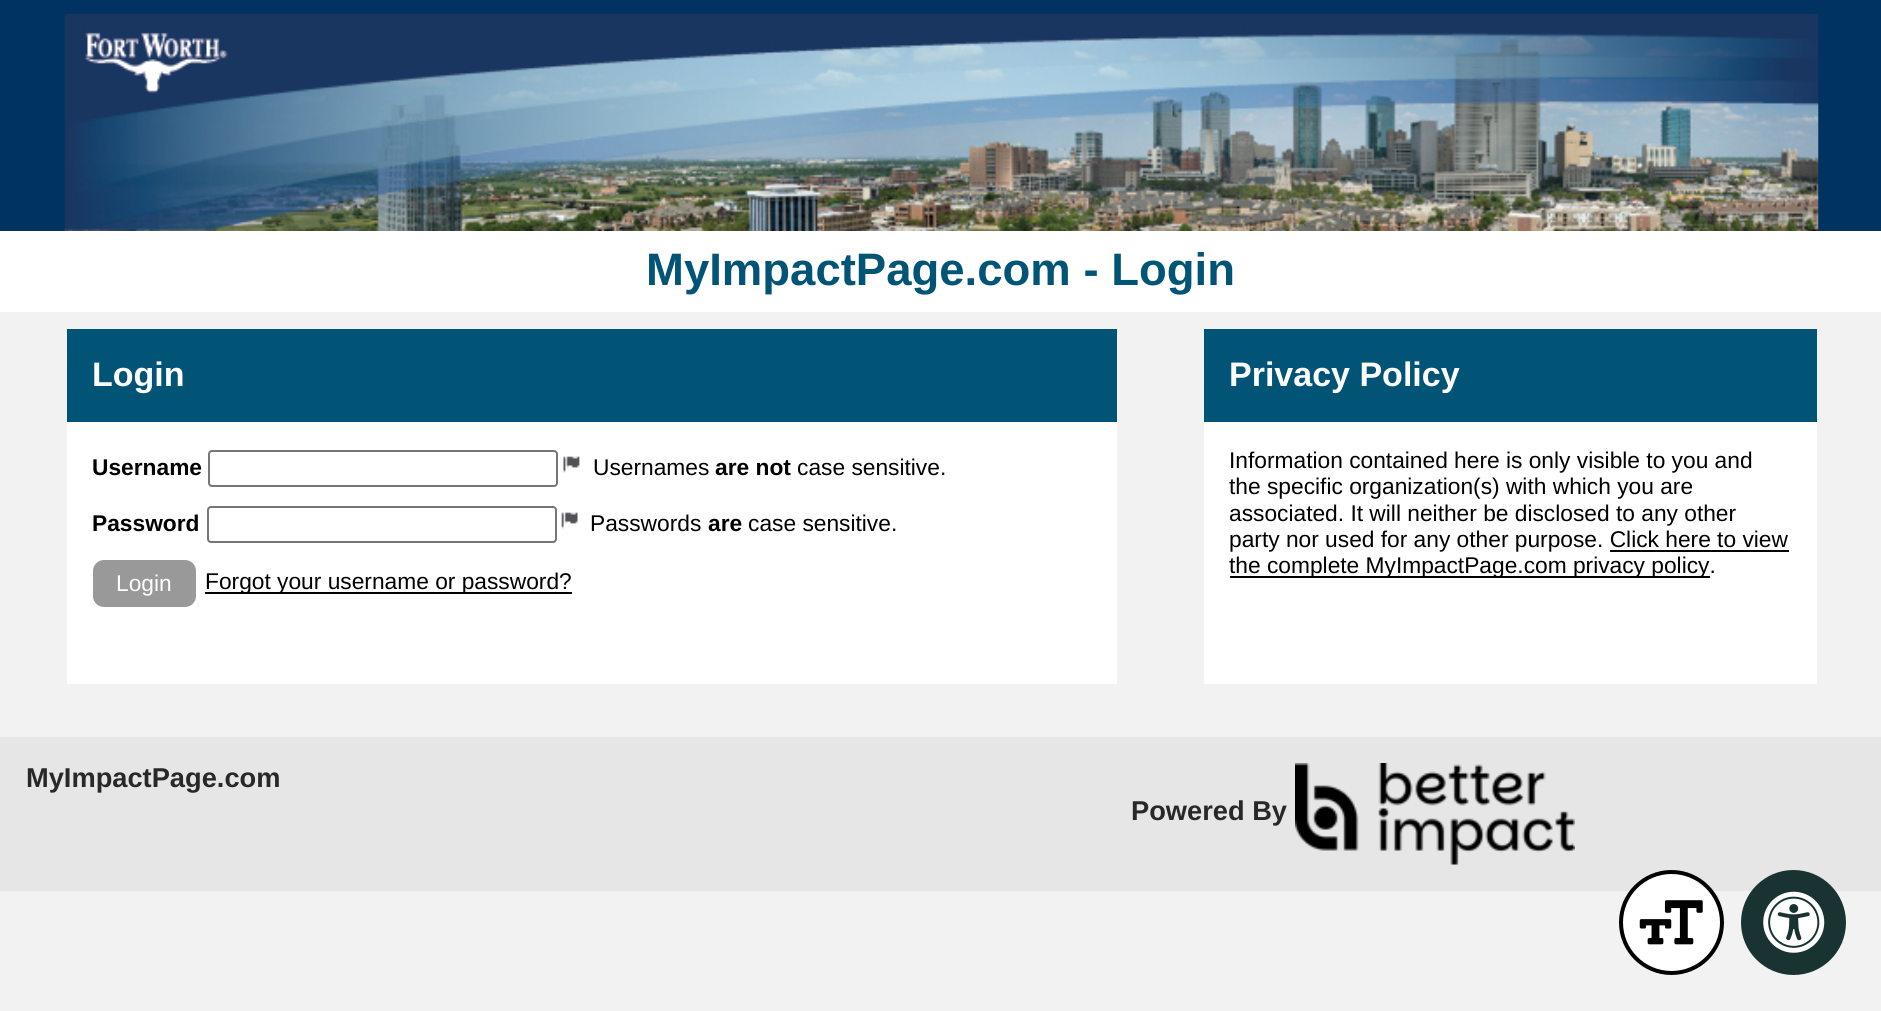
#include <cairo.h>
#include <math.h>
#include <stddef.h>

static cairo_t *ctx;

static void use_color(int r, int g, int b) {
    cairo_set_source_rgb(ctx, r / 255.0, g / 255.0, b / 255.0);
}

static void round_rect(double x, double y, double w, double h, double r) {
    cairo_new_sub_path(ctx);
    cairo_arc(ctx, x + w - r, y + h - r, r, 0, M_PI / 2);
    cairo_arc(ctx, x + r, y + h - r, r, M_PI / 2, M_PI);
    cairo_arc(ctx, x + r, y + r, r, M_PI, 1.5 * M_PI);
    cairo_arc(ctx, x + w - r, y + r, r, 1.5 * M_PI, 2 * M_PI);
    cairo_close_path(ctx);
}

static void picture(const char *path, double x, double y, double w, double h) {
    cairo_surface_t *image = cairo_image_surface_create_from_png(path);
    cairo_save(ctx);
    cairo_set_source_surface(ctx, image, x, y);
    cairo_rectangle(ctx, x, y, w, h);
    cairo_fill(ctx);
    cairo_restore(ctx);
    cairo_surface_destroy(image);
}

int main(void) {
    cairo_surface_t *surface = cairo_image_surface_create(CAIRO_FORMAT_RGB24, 1881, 1011);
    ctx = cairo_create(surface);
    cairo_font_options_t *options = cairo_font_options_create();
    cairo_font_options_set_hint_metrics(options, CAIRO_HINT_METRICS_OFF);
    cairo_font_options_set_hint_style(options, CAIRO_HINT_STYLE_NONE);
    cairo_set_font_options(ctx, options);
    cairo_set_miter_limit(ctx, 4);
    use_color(242, 242, 242);
    cairo_paint(ctx);
    use_color(0, 51, 98);
    cairo_rectangle(ctx, 0, 0, 1881, 231);
    cairo_fill(ctx);
    picture("img1.png", 64, 14, 1755, 217);
    use_color(255, 255, 255);
    cairo_rectangle(ctx, 0, 231, 1881, 81);
    cairo_fill(ctx);
    cairo_select_font_face(ctx, "Liberation Sans", CAIRO_FONT_SLANT_NORMAL, CAIRO_FONT_WEIGHT_BOLD);
    cairo_set_font_size(ctx, 45.5);
    use_color(2, 84, 119);
    cairo_move_to(ctx, 646, 285);
    cairo_show_text(ctx, "MyImpactPage.com - Login");
    cairo_rectangle(ctx, 67, 329, 1050, 93);
    cairo_fill(ctx);
    cairo_set_font_size(ctx, 34);
    use_color(255, 255, 255);
    cairo_move_to(ctx, 92, 386);
    cairo_show_text(ctx, "Login");
    cairo_rectangle(ctx, 67, 422, 1050, 262);
    cairo_fill(ctx);
    cairo_set_font_size(ctx, 22.75);
    use_color(0, 0, 0);
    cairo_move_to(ctx, 92, 475);
    cairo_show_text(ctx, "Username");
    round_rect(209, 451, 348, 35, 3);
    use_color(118, 118, 118);
    cairo_stroke(ctx);
    picture("img2.png", 563, 456, 17, 17);
    cairo_select_font_face(ctx, "Liberation Sans", CAIRO_FONT_SLANT_NORMAL, CAIRO_FONT_WEIGHT_NORMAL);
    use_color(0, 0, 0);
    cairo_move_to(ctx, 593, 475);
    cairo_show_text(ctx, "Usernames");
    cairo_select_font_face(ctx, "Liberation Sans", CAIRO_FONT_SLANT_NORMAL, CAIRO_FONT_WEIGHT_BOLD);
    cairo_move_to(ctx, 715, 475);
    cairo_show_text(ctx, "are not");
    cairo_select_font_face(ctx, "Liberation Sans", CAIRO_FONT_SLANT_NORMAL, CAIRO_FONT_WEIGHT_NORMAL);
    cairo_move_to(ctx, 797, 475);
    cairo_show_text(ctx, "case sensitive.");
    cairo_select_font_face(ctx, "Liberation Sans", CAIRO_FONT_SLANT_NORMAL, CAIRO_FONT_WEIGHT_BOLD);
    cairo_move_to(ctx, 92, 531);
    cairo_show_text(ctx, "Password");
    round_rect(208, 507, 348, 35, 3);
    use_color(118, 118, 118);
    cairo_stroke(ctx);
    picture("img3.png", 561, 512, 17, 17);
    cairo_select_font_face(ctx, "Liberation Sans", CAIRO_FONT_SLANT_NORMAL, CAIRO_FONT_WEIGHT_NORMAL);
    use_color(0, 0, 0);
    cairo_move_to(ctx, 590, 531);
    cairo_show_text(ctx, "Passwords");
    cairo_select_font_face(ctx, "Liberation Sans", CAIRO_FONT_SLANT_NORMAL, CAIRO_FONT_WEIGHT_BOLD);
    cairo_move_to(ctx, 708, 531);
    cairo_show_text(ctx, "are");
    cairo_select_font_face(ctx, "Liberation Sans", CAIRO_FONT_SLANT_NORMAL, CAIRO_FONT_WEIGHT_NORMAL);
    cairo_move_to(ctx, 748, 531);
    cairo_show_text(ctx, "case sensitive.");
    use_color(153, 153, 153);
    round_rect(94, 561, 101, 45, 10);
    cairo_fill_preserve(ctx);
    cairo_stroke(ctx);
    use_color(255, 255, 255);
    cairo_move_to(ctx, 116, 591);
    cairo_show_text(ctx, "Login");
    use_color(0, 0, 0);
    cairo_rectangle(ctx, 205, 592, 367, 2);
    cairo_fill(ctx);
    cairo_move_to(ctx, 205, 589);
    cairo_show_text(ctx, "Forgot your username or password?");
    use_color(2, 84, 119);
    cairo_rectangle(ctx, 1204, 329, 613, 93);
    cairo_fill(ctx);
    cairo_select_font_face(ctx, "Liberation Sans", CAIRO_FONT_SLANT_NORMAL, CAIRO_FONT_WEIGHT_BOLD);
    cairo_set_font_size(ctx, 34);
    use_color(255, 255, 255);
    cairo_move_to(ctx, 1229, 386);
    cairo_show_text(ctx, "Privacy Policy");
    cairo_rectangle(ctx, 1204, 422, 613, 262);
    cairo_fill(ctx);
    cairo_select_font_face(ctx, "Liberation Sans", CAIRO_FONT_SLANT_NORMAL, CAIRO_FONT_WEIGHT_NORMAL);
    cairo_set_font_size(ctx, 22.75);
    use_color(0, 0, 0);
    cairo_move_to(ctx, 1229, 468);
    cairo_show_text(ctx, "Information contained here is only visible to you and");
    cairo_move_to(ctx, 1229, 494);
    cairo_show_text(ctx, "the specific organization(s) with which you are");
    cairo_move_to(ctx, 1229, 521);
    cairo_show_text(ctx, "associated. It will neither be disclosed to any other");
    cairo_move_to(ctx, 1229, 547);
    cairo_show_text(ctx, "party nor used for any other purpose. Click here to view");
    cairo_rectangle(ctx, 1230, 576, 480, 2);
    cairo_fill(ctx);
    cairo_move_to(ctx, 1229, 573);
    cairo_show_text(ctx, "the complete MyImpactPage.com privacy policy.");
    cairo_rectangle(ctx, 1610, 550, 179, 2);
    cairo_fill(ctx);
    use_color(230, 230, 230);
    cairo_rectangle(ctx, 0, 737, 1881, 154);
    cairo_fill(ctx);
    cairo_select_font_face(ctx, "Liberation Sans", CAIRO_FONT_SLANT_NORMAL, CAIRO_FONT_WEIGHT_BOLD);
    cairo_set_font_size(ctx, 27.25);
    use_color(40, 40, 40);
    cairo_move_to(ctx, 26, 787);
    cairo_show_text(ctx, "MyImpactPage.com");
    cairo_move_to(ctx, 1131, 820);
    cairo_show_text(ctx, "Powered By");
    picture("img4.png", 1295, 763, 280, 102);
    use_color(255, 255, 255);
    cairo_arc(ctx, 1671.5, 922.5, 50.5, 0, 2 * M_PI);
    cairo_fill_preserve(ctx);
    use_color(0, 0, 0);
    cairo_set_line_width(ctx, 4);
    cairo_stroke(ctx);
    picture("img5.png", 1639, 900, 64, 45);
    use_color(24, 51, 49);
    cairo_arc(ctx, 1793.5, 922.5, 52.5, 0, 2 * M_PI);
    cairo_fill(ctx);
    picture("img6.png", 1763, 891, 62, 62);
    cairo_surface_write_to_png(surface, "result.png");
    cairo_font_options_destroy(options);
    cairo_destroy(ctx);
    cairo_surface_destroy(surface);
    return 0;
}
